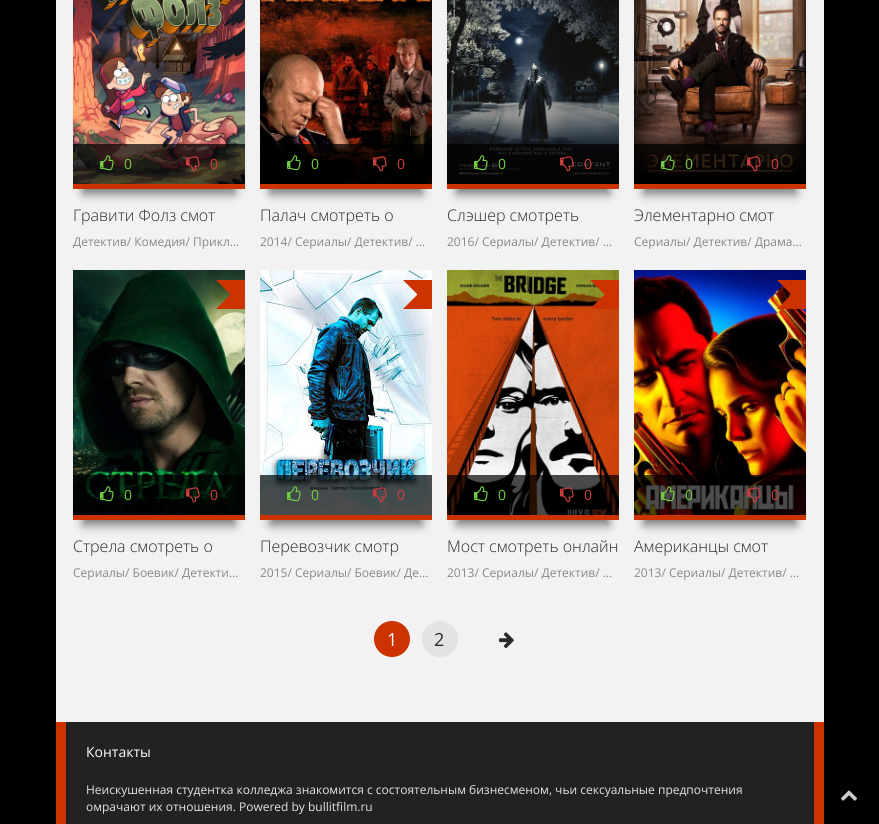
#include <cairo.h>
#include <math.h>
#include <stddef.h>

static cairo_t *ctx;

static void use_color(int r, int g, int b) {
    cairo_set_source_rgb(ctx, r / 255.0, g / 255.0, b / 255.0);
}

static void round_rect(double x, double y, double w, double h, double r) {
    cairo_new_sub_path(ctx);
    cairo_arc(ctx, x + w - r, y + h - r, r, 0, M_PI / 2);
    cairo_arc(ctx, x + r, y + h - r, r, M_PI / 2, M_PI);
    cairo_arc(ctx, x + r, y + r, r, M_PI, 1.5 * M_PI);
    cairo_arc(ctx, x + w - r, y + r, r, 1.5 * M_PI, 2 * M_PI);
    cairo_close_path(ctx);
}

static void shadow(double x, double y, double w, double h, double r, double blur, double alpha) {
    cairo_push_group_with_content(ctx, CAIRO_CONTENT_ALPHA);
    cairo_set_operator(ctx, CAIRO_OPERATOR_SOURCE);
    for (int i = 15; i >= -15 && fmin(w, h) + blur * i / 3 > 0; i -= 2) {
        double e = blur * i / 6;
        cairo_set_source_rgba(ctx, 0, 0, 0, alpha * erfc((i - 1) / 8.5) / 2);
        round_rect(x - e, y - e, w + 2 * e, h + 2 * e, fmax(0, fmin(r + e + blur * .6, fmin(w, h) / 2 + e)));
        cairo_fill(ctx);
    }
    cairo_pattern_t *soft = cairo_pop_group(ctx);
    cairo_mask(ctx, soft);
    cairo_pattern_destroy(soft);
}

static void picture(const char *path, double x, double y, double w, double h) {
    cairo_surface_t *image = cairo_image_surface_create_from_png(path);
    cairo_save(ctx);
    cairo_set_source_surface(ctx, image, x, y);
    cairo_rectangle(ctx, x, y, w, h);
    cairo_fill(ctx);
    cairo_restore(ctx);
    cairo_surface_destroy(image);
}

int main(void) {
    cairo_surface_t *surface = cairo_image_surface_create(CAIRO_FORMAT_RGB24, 879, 824);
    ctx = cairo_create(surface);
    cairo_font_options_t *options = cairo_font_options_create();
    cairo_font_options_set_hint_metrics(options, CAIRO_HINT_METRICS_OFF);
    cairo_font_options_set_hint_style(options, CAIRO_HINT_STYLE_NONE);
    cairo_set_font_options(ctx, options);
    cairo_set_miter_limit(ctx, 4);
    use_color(0, 0, 0);
    cairo_paint(ctx);
    use_color(242, 242, 242);
    cairo_rectangle(ctx, 56, 0, 768, 722);
    cairo_fill(ctx);
    use_color(0, 0, 0);
    shadow(83, -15, 152, 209, 0, 5, 0.5);
    use_color(204, 51, 0);
    cairo_rectangle(ctx, 73, 184, 172, 5);
    cairo_fill(ctx);
    picture("img1.png", 73, 0, 172, 184);
    cairo_set_source_rgba(ctx, 0, 0, 0, 0.7);
    cairo_rectangle(ctx, 73, 144, 172, 40);
    cairo_fill(ctx);
    picture("img2.png", 100, 155, 14, 16);
    cairo_select_font_face(ctx, "Open Sans", CAIRO_FONT_SLANT_NORMAL, CAIRO_FONT_WEIGHT_NORMAL);
    cairo_set_font_size(ctx, 14);
    use_color(113, 206, 63);
    cairo_move_to(ctx, 124, 169);
    cairo_show_text(ctx, "0");
    picture("img3.png", 186, 156, 14, 16);
    use_color(207, 62, 62);
    cairo_move_to(ctx, 210, 169);
    cairo_show_text(ctx, "0");
    cairo_select_font_face(ctx, "Open Sans Light", CAIRO_FONT_SLANT_NORMAL, CAIRO_FONT_WEIGHT_NORMAL);
    cairo_set_font_size(ctx, 16);
    use_color(42, 42, 42);
    cairo_move_to(ctx, 73, 221);
    cairo_show_text(ctx, "Гравити Фолз смот...");
    cairo_select_font_face(ctx, "Open Sans", CAIRO_FONT_SLANT_NORMAL, CAIRO_FONT_WEIGHT_NORMAL);
    cairo_set_font_size(ctx, 12);
    use_color(136, 136, 136);
    cairo_move_to(ctx, 73, 246);
    cairo_show_text(ctx, "Детектив/ Комедия/ Прикл…");
    use_color(0, 0, 0);
    shadow(270, -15, 152, 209, 0, 5, 0.5);
    use_color(204, 51, 0);
    cairo_rectangle(ctx, 260, 184, 172, 5);
    cairo_fill(ctx);
    picture("img4.png", 260, 0, 172, 184);
    cairo_set_source_rgba(ctx, 0, 0, 0, 0.7);
    cairo_rectangle(ctx, 260, 144, 172, 40);
    cairo_fill(ctx);
    picture("img5.png", 287, 155, 14, 16);
    cairo_set_font_size(ctx, 14);
    use_color(113, 206, 63);
    cairo_move_to(ctx, 311, 169);
    cairo_show_text(ctx, "0");
    picture("img6.png", 373, 156, 14, 16);
    use_color(207, 62, 62);
    cairo_move_to(ctx, 397, 169);
    cairo_show_text(ctx, "0");
    cairo_select_font_face(ctx, "Open Sans Light", CAIRO_FONT_SLANT_NORMAL, CAIRO_FONT_WEIGHT_NORMAL);
    cairo_set_font_size(ctx, 16);
    use_color(42, 42, 42);
    cairo_move_to(ctx, 260, 221);
    cairo_show_text(ctx, "Палач смотреть о...");
    cairo_select_font_face(ctx, "Open Sans", CAIRO_FONT_SLANT_NORMAL, CAIRO_FONT_WEIGHT_NORMAL);
    cairo_set_font_size(ctx, 12);
    use_color(136, 136, 136);
    cairo_move_to(ctx, 260, 246);
    cairo_show_text(ctx, "2014/ Сериалы/ Детектив/ …");
    use_color(0, 0, 0);
    shadow(457, -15, 152, 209, 0, 5, 0.5);
    use_color(204, 51, 0);
    cairo_rectangle(ctx, 447, 184, 172, 5);
    cairo_fill(ctx);
    picture("img7.png", 447, 0, 172, 184);
    cairo_set_source_rgba(ctx, 0, 0, 0, 0.7);
    cairo_rectangle(ctx, 447, 144, 172, 40);
    cairo_fill(ctx);
    picture("img8.png", 474, 155, 14, 16);
    cairo_set_font_size(ctx, 14);
    use_color(113, 206, 63);
    cairo_move_to(ctx, 498, 169);
    cairo_show_text(ctx, "0");
    picture("img9.png", 560, 156, 14, 16);
    use_color(207, 62, 62);
    cairo_move_to(ctx, 584, 169);
    cairo_show_text(ctx, "0");
    cairo_select_font_face(ctx, "Open Sans Light", CAIRO_FONT_SLANT_NORMAL, CAIRO_FONT_WEIGHT_NORMAL);
    cairo_set_font_size(ctx, 16);
    use_color(42, 42, 42);
    cairo_move_to(ctx, 447, 221);
    cairo_show_text(ctx, "Слэшер смотреть ...");
    cairo_select_font_face(ctx, "Open Sans", CAIRO_FONT_SLANT_NORMAL, CAIRO_FONT_WEIGHT_NORMAL);
    cairo_set_font_size(ctx, 12);
    use_color(136, 136, 136);
    cairo_move_to(ctx, 447, 246);
    cairo_show_text(ctx, "2016/ Сериалы/ Детектив/ …");
    use_color(0, 0, 0);
    shadow(644, -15, 152, 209, 0, 5, 0.5);
    use_color(204, 51, 0);
    cairo_rectangle(ctx, 634, 184, 172, 5);
    cairo_fill(ctx);
    picture("img10.png", 634, 0, 172, 184);
    cairo_set_source_rgba(ctx, 0, 0, 0, 0.7);
    cairo_rectangle(ctx, 634, 144, 172, 32);
    cairo_fill(ctx);
    picture("img11.png", 661, 155, 14, 16);
    cairo_set_font_size(ctx, 14);
    use_color(113, 206, 63);
    cairo_move_to(ctx, 685, 169);
    cairo_show_text(ctx, "0");
    picture("img12.png", 747, 156, 14, 16);
    use_color(207, 62, 62);
    cairo_move_to(ctx, 771, 169);
    cairo_show_text(ctx, "0");
    cairo_select_font_face(ctx, "Open Sans Light", CAIRO_FONT_SLANT_NORMAL, CAIRO_FONT_WEIGHT_NORMAL);
    cairo_set_font_size(ctx, 16);
    use_color(42, 42, 42);
    cairo_move_to(ctx, 634, 221);
    cairo_show_text(ctx, "Элементарно смот...");
    cairo_select_font_face(ctx, "Open Sans", CAIRO_FONT_SLANT_NORMAL, CAIRO_FONT_WEIGHT_NORMAL);
    cairo_set_font_size(ctx, 12);
    use_color(136, 136, 136);
    cairo_move_to(ctx, 634, 246);
    cairo_show_text(ctx, "Сериалы/ Детектив/ Драма…");
    use_color(0, 0, 0);
    shadow(83, 295, 152, 230, 0, 5, 0.5);
    use_color(204, 51, 0);
    cairo_rectangle(ctx, 73, 515, 172, 5);
    cairo_fill(ctx);
    picture("img13.png", 73, 270, 172, 245);
    cairo_rectangle(ctx, 235, 280, 10, 29);
    cairo_fill(ctx);
    cairo_new_path(ctx);
    cairo_move_to(ctx, 216, 280);
    cairo_line_to(ctx, 235, 280);
    cairo_line_to(ctx, 230, 294);
    cairo_close_path(ctx);
    cairo_fill(ctx);
    cairo_rectangle(ctx, 230, 280, 5, 29);
    cairo_fill(ctx);
    cairo_new_path(ctx);
    cairo_move_to(ctx, 235, 309);
    cairo_line_to(ctx, 216, 309);
    cairo_line_to(ctx, 230, 295);
    cairo_close_path(ctx);
    cairo_fill(ctx);
    cairo_set_source_rgba(ctx, 0, 0, 0, 0.7);
    cairo_rectangle(ctx, 73, 475, 172, 40);
    cairo_fill(ctx);
    picture("img14.png", 100, 486, 14, 16);
    cairo_set_font_size(ctx, 14);
    use_color(113, 206, 63);
    cairo_move_to(ctx, 124, 500);
    cairo_show_text(ctx, "0");
    picture("img15.png", 186, 487, 14, 16);
    use_color(207, 62, 62);
    cairo_move_to(ctx, 210, 500);
    cairo_show_text(ctx, "0");
    cairo_select_font_face(ctx, "Open Sans Light", CAIRO_FONT_SLANT_NORMAL, CAIRO_FONT_WEIGHT_NORMAL);
    cairo_set_font_size(ctx, 16);
    use_color(42, 42, 42);
    cairo_move_to(ctx, 73, 552);
    cairo_show_text(ctx, "Стрела смотреть о...");
    cairo_select_font_face(ctx, "Open Sans", CAIRO_FONT_SLANT_NORMAL, CAIRO_FONT_WEIGHT_NORMAL);
    cairo_set_font_size(ctx, 12);
    use_color(136, 136, 136);
    cairo_move_to(ctx, 73, 577);
    cairo_show_text(ctx, "Сериалы/ Боевик/ Детекти…");
    use_color(0, 0, 0);
    shadow(270, 295, 152, 230, 0, 5, 0.5);
    use_color(204, 51, 0);
    cairo_rectangle(ctx, 260, 515, 172, 5);
    cairo_fill(ctx);
    picture("img16.png", 260, 270, 172, 245);
    cairo_rectangle(ctx, 422, 280, 10, 29);
    cairo_fill(ctx);
    cairo_new_path(ctx);
    cairo_move_to(ctx, 403, 280);
    cairo_line_to(ctx, 422, 280);
    cairo_line_to(ctx, 417, 294);
    cairo_close_path(ctx);
    cairo_fill(ctx);
    cairo_rectangle(ctx, 417, 280, 5, 29);
    cairo_fill(ctx);
    cairo_new_path(ctx);
    cairo_move_to(ctx, 422, 309);
    cairo_line_to(ctx, 403, 309);
    cairo_line_to(ctx, 417, 295);
    cairo_close_path(ctx);
    cairo_fill(ctx);
    cairo_set_source_rgba(ctx, 0, 0, 0, 0.7);
    cairo_rectangle(ctx, 260, 475, 172, 40);
    cairo_fill(ctx);
    picture("img17.png", 287, 486, 14, 16);
    cairo_set_font_size(ctx, 14);
    use_color(113, 206, 63);
    cairo_move_to(ctx, 311, 500);
    cairo_show_text(ctx, "0");
    picture("img18.png", 373, 487, 14, 16);
    use_color(207, 62, 62);
    cairo_move_to(ctx, 397, 500);
    cairo_show_text(ctx, "0");
    cairo_select_font_face(ctx, "Open Sans Light", CAIRO_FONT_SLANT_NORMAL, CAIRO_FONT_WEIGHT_NORMAL);
    cairo_set_font_size(ctx, 16);
    use_color(42, 42, 42);
    cairo_move_to(ctx, 260, 552);
    cairo_show_text(ctx, "Перевозчик смотр...");
    cairo_select_font_face(ctx, "Open Sans", CAIRO_FONT_SLANT_NORMAL, CAIRO_FONT_WEIGHT_NORMAL);
    cairo_set_font_size(ctx, 12);
    use_color(136, 136, 136);
    cairo_move_to(ctx, 260, 577);
    cairo_show_text(ctx, "2015/ Сериалы/ Боевик/ Де…");
    use_color(0, 0, 0);
    shadow(457, 295, 152, 230, 0, 5, 0.5);
    use_color(204, 51, 0);
    cairo_rectangle(ctx, 447, 515, 172, 5);
    cairo_fill(ctx);
    picture("img19.png", 447, 270, 172, 245);
    cairo_rectangle(ctx, 609, 280, 10, 29);
    cairo_fill(ctx);
    cairo_new_path(ctx);
    cairo_move_to(ctx, 590, 280);
    cairo_line_to(ctx, 609, 280);
    cairo_line_to(ctx, 604, 294);
    cairo_close_path(ctx);
    cairo_fill(ctx);
    cairo_rectangle(ctx, 604, 280, 5, 29);
    cairo_fill(ctx);
    cairo_new_path(ctx);
    cairo_move_to(ctx, 609, 309);
    cairo_line_to(ctx, 590, 309);
    cairo_line_to(ctx, 604, 295);
    cairo_close_path(ctx);
    cairo_fill(ctx);
    cairo_set_source_rgba(ctx, 0, 0, 0, 0.7);
    cairo_rectangle(ctx, 447, 475, 172, 40);
    cairo_fill(ctx);
    picture("img20.png", 474, 486, 14, 16);
    cairo_set_font_size(ctx, 14);
    use_color(113, 206, 63);
    cairo_move_to(ctx, 498, 500);
    cairo_show_text(ctx, "0");
    picture("img21.png", 560, 487, 14, 16);
    use_color(207, 62, 62);
    cairo_move_to(ctx, 584, 500);
    cairo_show_text(ctx, "0");
    cairo_select_font_face(ctx, "Open Sans Light", CAIRO_FONT_SLANT_NORMAL, CAIRO_FONT_WEIGHT_NORMAL);
    cairo_set_font_size(ctx, 16);
    use_color(42, 42, 42);
    cairo_move_to(ctx, 447, 552);
    cairo_show_text(ctx, "Мост смотреть онлайн");
    cairo_select_font_face(ctx, "Open Sans", CAIRO_FONT_SLANT_NORMAL, CAIRO_FONT_WEIGHT_NORMAL);
    cairo_set_font_size(ctx, 12);
    use_color(136, 136, 136);
    cairo_move_to(ctx, 447, 577);
    cairo_show_text(ctx, "2013/ Сериалы/ Детектив/ …");
    use_color(0, 0, 0);
    shadow(644, 295, 152, 230, 0, 5, 0.5);
    use_color(204, 51, 0);
    cairo_rectangle(ctx, 634, 515, 172, 5);
    cairo_fill(ctx);
    picture("img22.png", 634, 270, 172, 245);
    cairo_rectangle(ctx, 796, 280, 10, 29);
    cairo_fill(ctx);
    cairo_new_path(ctx);
    cairo_move_to(ctx, 777, 280);
    cairo_line_to(ctx, 796, 280);
    cairo_line_to(ctx, 791, 294);
    cairo_close_path(ctx);
    cairo_fill(ctx);
    cairo_rectangle(ctx, 791, 280, 5, 29);
    cairo_fill(ctx);
    cairo_new_path(ctx);
    cairo_move_to(ctx, 796, 309);
    cairo_line_to(ctx, 777, 309);
    cairo_line_to(ctx, 791, 295);
    cairo_close_path(ctx);
    cairo_fill(ctx);
    cairo_set_source_rgba(ctx, 0, 0, 0, 0.7);
    cairo_rectangle(ctx, 634, 475, 172, 40);
    cairo_fill(ctx);
    picture("img23.png", 661, 486, 14, 16);
    cairo_set_font_size(ctx, 14);
    use_color(113, 206, 63);
    cairo_move_to(ctx, 685, 500);
    cairo_show_text(ctx, "0");
    picture("img24.png", 747, 487, 14, 16);
    use_color(207, 62, 62);
    cairo_move_to(ctx, 771, 500);
    cairo_show_text(ctx, "0");
    cairo_select_font_face(ctx, "Open Sans Light", CAIRO_FONT_SLANT_NORMAL, CAIRO_FONT_WEIGHT_NORMAL);
    cairo_set_font_size(ctx, 16);
    use_color(42, 42, 42);
    cairo_move_to(ctx, 634, 552);
    cairo_show_text(ctx, "Американцы смот...");
    cairo_select_font_face(ctx, "Open Sans", CAIRO_FONT_SLANT_NORMAL, CAIRO_FONT_WEIGHT_NORMAL);
    cairo_set_font_size(ctx, 12);
    use_color(136, 136, 136);
    cairo_move_to(ctx, 634, 577);
    cairo_show_text(ctx, "2013/ Сериалы/ Детектив/ …");
    use_color(204, 51, 0);
    cairo_new_path(ctx);
    cairo_arc(ctx, 392, 639, 18, 0, 2 * M_PI);
    cairo_fill(ctx);
    cairo_set_font_size(ctx, 18);
    use_color(255, 255, 255);
    cairo_move_to(ctx, 387, 646);
    cairo_show_text(ctx, "1");
    use_color(227, 227, 227);
    cairo_new_path(ctx);
    cairo_arc(ctx, 440, 639, 18, 0, 2 * M_PI);
    cairo_fill(ctx);
    use_color(42, 42, 42);
    cairo_move_to(ctx, 434, 646);
    cairo_show_text(ctx, "2");
    picture("img25.png", 499, 632, 15, 16);
    use_color(34, 34, 34);
    cairo_rectangle(ctx, 66, 722, 748, 102);
    cairo_fill(ctx);
    use_color(204, 51, 0);
    cairo_rectangle(ctx, 814, 722, 10, 102);
    cairo_fill(ctx);
    cairo_rectangle(ctx, 56, 722, 10, 102);
    cairo_fill(ctx);
    cairo_set_font_size(ctx, 14);
    use_color(255, 255, 255);
    cairo_move_to(ctx, 86, 757);
    cairo_show_text(ctx, "Контакты");
    cairo_set_font_size(ctx, 12);
    use_color(227, 227, 227);
    cairo_move_to(ctx, 86, 794);
    cairo_show_text(ctx, "Неискушенная студентка колледжа знакомится с состоятельным бизнесменом, чьи сексуальные предпочтения");
    cairo_move_to(ctx, 86, 811);
    cairo_show_text(ctx, "омрачают их отношения. Powered by bullitfilm.ru");
    picture("img26.png", 841, 790, 16, 11);
    cairo_surface_write_to_png(surface, "result.png");
    cairo_font_options_destroy(options);
    cairo_destroy(ctx);
    cairo_surface_destroy(surface);
    return 0;
}
